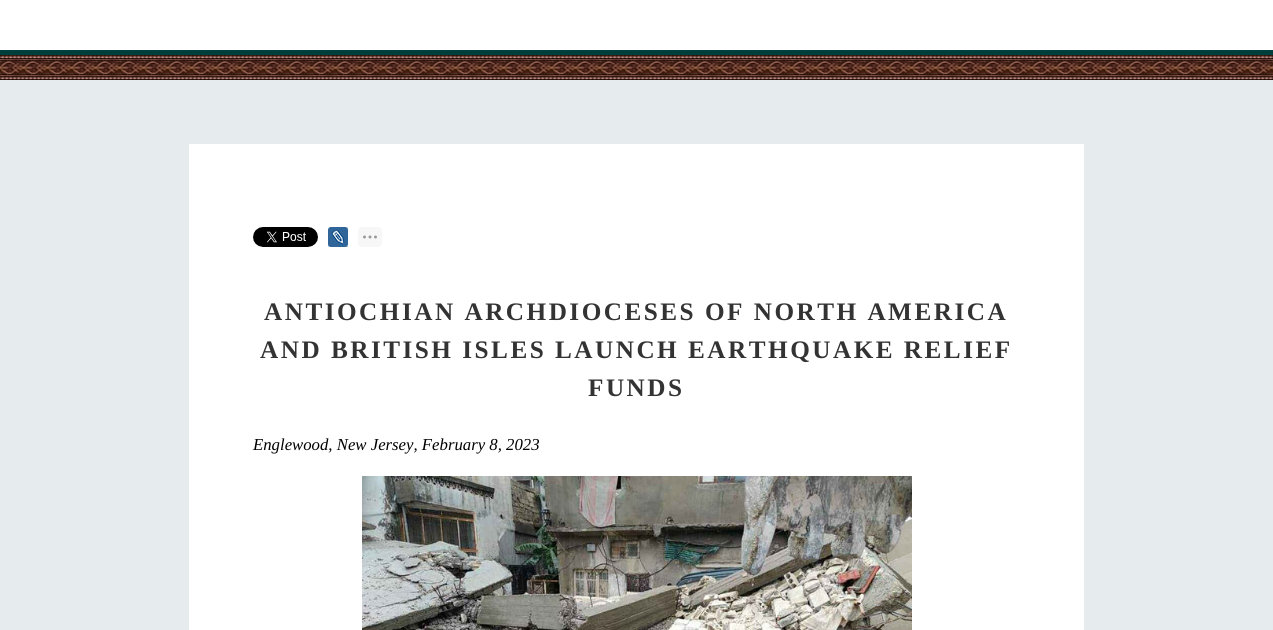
#include <cairo.h>
#include <math.h>
#include <stddef.h>

static cairo_t *ctx;

static void use_color(int r, int g, int b) {
    cairo_set_source_rgb(ctx, r / 255.0, g / 255.0, b / 255.0);
}

static void spaced_text(double x, double y, const char *s, double letter, double word) {
    cairo_move_to(ctx, x, y);
    while (*s) {
        char ch[5] = {0};
        int n = 0;
        do ch[n++] = *s++; while ((*s & 0xC0) == 0x80);
        cairo_show_text(ctx, ch);
        cairo_rel_move_to(ctx, letter + word * (*ch == ' '), 0);
    }
}

static void round_rect(double x, double y, double w, double h, double r) {
    cairo_new_sub_path(ctx);
    cairo_arc(ctx, x + w - r, y + h - r, r, 0, M_PI / 2);
    cairo_arc(ctx, x + r, y + h - r, r, M_PI / 2, M_PI);
    cairo_arc(ctx, x + r, y + r, r, M_PI, 1.5 * M_PI);
    cairo_arc(ctx, x + w - r, y + r, r, 1.5 * M_PI, 2 * M_PI);
    cairo_close_path(ctx);
}

static void picture(const char *path, double x, double y, double w, double h) {
    cairo_surface_t *image = cairo_image_surface_create_from_png(path);
    cairo_save(ctx);
    cairo_set_source_surface(ctx, image, x, y);
    cairo_rectangle(ctx, x, y, w, h);
    cairo_fill(ctx);
    cairo_restore(ctx);
    cairo_surface_destroy(image);
}

int main(void) {
    cairo_surface_t *surface = cairo_image_surface_create(CAIRO_FORMAT_RGB24, 1273, 630);
    ctx = cairo_create(surface);
    cairo_font_options_t *options = cairo_font_options_create();
    cairo_font_options_set_hint_metrics(options, CAIRO_HINT_METRICS_OFF);
    cairo_font_options_set_hint_style(options, CAIRO_HINT_STYLE_NONE);
    cairo_set_font_options(ctx, options);
    cairo_set_miter_limit(ctx, 4);
    use_color(230, 235, 238);
    cairo_paint(ctx);
    use_color(255, 255, 255);
    cairo_rectangle(ctx, 0, 0, 1273, 50);
    cairo_fill(ctx);
    use_color(0, 63, 59);
    cairo_rectangle(ctx, 0, 50, 1273, 5);
    cairo_fill(ctx);
    picture("img1.png", 0, 55, 1273, 25);
    use_color(255, 255, 255);
    cairo_rectangle(ctx, 189, 144, 895, 486);
    cairo_fill(ctx);
    picture("img2.png", 253, 227, 65, 20);
    picture("img3.png", 328, 227, 20, 20);
    use_color(247, 247, 247);
    round_rect(358, 227, 24, 20, 4);
    cairo_fill(ctx);
    picture("img4.png", 363, 235, 14, 4);
    cairo_select_font_face(ctx, "Liberation Serif", CAIRO_FONT_SLANT_NORMAL, CAIRO_FONT_WEIGHT_BOLD);
    cairo_set_font_size(ctx, 25.2);
    use_color(51, 51, 51);
    spaced_text(264, 320, "ANTIOCHIAN ARCHDIOCESES OF NORTH AMERICA", 2.5, 0);
    spaced_text(260, 358, "AND BRITISH ISLES LAUNCH EARTHQUAKE RELIEF", 2.5, 0);
    spaced_text(588, 396, "FUNDS", 2.5, 0);
    cairo_select_font_face(ctx, "Liberation Serif", CAIRO_FONT_SLANT_ITALIC, CAIRO_FONT_WEIGHT_NORMAL);
    cairo_set_font_size(ctx, 16.75);
    use_color(0, 0, 0);
    cairo_move_to(ctx, 253, 450);
    cairo_show_text(ctx, "Englewood, New Jersey, February 8, 2023");
    picture("img5.png", 362, 476, 550, 154);
    cairo_surface_write_to_png(surface, "result.png");
    cairo_font_options_destroy(options);
    cairo_destroy(ctx);
    cairo_surface_destroy(surface);
    return 0;
}
